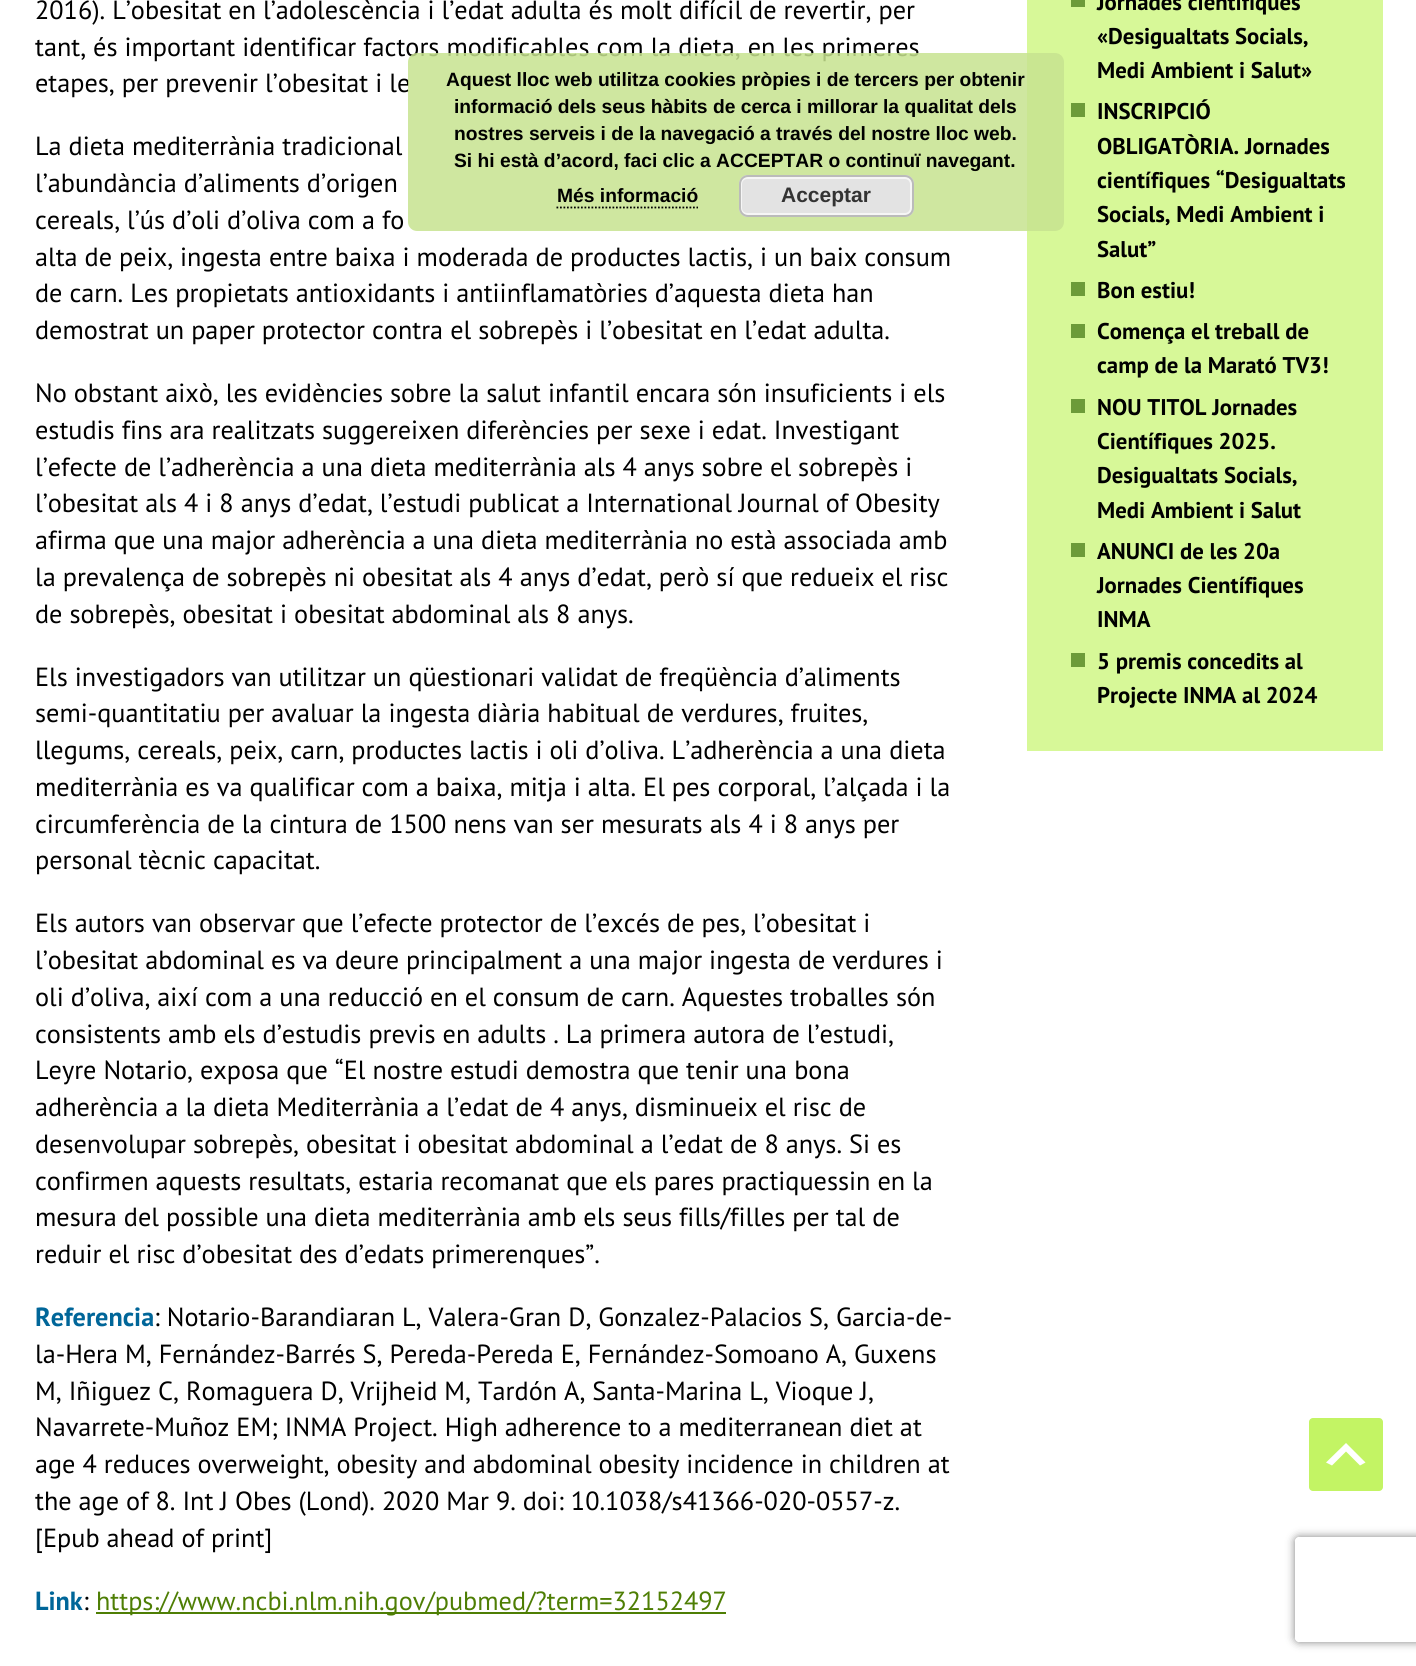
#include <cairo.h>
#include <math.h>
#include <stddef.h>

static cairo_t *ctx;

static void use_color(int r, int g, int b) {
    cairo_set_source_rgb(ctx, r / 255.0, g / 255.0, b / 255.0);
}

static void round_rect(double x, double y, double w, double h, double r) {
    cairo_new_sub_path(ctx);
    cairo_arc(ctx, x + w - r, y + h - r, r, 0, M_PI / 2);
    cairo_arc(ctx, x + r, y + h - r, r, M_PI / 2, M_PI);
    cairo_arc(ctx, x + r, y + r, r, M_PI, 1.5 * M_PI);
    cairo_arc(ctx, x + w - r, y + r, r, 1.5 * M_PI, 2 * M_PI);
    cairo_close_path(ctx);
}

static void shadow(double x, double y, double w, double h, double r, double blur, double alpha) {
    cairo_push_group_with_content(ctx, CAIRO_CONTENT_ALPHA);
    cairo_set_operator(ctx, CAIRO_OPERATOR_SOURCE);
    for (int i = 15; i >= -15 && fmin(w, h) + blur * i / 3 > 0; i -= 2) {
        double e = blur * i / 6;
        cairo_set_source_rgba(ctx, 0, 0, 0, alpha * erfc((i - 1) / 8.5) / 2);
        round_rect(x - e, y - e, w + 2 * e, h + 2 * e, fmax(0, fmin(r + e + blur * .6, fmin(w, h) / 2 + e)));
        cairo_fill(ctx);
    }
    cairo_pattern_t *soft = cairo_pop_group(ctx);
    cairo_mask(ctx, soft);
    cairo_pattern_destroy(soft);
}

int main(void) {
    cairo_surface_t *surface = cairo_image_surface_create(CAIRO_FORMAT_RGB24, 1416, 1666);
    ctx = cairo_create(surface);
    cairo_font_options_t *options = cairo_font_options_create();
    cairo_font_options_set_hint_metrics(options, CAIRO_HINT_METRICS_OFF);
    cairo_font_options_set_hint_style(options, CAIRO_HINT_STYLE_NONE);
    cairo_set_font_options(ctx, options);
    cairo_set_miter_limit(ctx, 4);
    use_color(255, 255, 255);
    cairo_paint(ctx);
    cairo_select_font_face(ctx, "PT Sans", CAIRO_FONT_SLANT_NORMAL, CAIRO_FONT_WEIGHT_NORMAL);
    cairo_set_font_size(ctx, 26.25);
    use_color(0, 0, 0);
    cairo_move_to(ctx, 35, 19);
    cairo_show_text(ctx, "2016). L’obesitat en l’adolescència i l’edat adulta és molt difícil de revertir, per");
    cairo_move_to(ctx, 35, 56);
    cairo_show_text(ctx, "tant, és important identificar factors modificables com la dieta, en les primeres");
    cairo_move_to(ctx, 35, 92);
    cairo_show_text(ctx, "etapes, per prevenir l’obesitat i le");
    cairo_move_to(ctx, 35, 155);
    cairo_show_text(ctx, "La dieta mediterrània tradicional");
    cairo_move_to(ctx, 35, 192);
    cairo_show_text(ctx, "l’abundància d’aliments d’origen");
    cairo_move_to(ctx, 35, 229);
    cairo_show_text(ctx, "cereals, l’ús d’oli d’oliva com a fo");
    cairo_move_to(ctx, 35, 266);
    cairo_show_text(ctx, "alta de peix, ingesta entre baixa i moderada de productes lactis, i un baix consum");
    cairo_move_to(ctx, 35, 302);
    cairo_show_text(ctx, "de carn. Les propietats antioxidants i antiinflamatòries d’aquesta dieta han");
    cairo_move_to(ctx, 35, 339);
    cairo_show_text(ctx, "demostrat un paper protector contra el sobrepès i l’obesitat en l’edat adulta.");
    cairo_move_to(ctx, 35, 402);
    cairo_show_text(ctx, "No obstant això, les evidències sobre la salut infantil encara són insuficients i els");
    cairo_move_to(ctx, 35, 439);
    cairo_show_text(ctx, "estudis fins ara realitzats suggereixen diferències per sexe i edat. Investigant");
    cairo_move_to(ctx, 35, 476);
    cairo_show_text(ctx, "l’efecte de l’adherència a una dieta mediterrània als 4 anys sobre el sobrepès i");
    cairo_move_to(ctx, 35, 512);
    cairo_show_text(ctx, "l’obesitat als 4 i 8 anys d’edat, l’estudi publicat a International Journal of Obesity");
    cairo_move_to(ctx, 35, 549);
    cairo_show_text(ctx, "afirma que una major adherència a una dieta mediterrània no està associada amb");
    cairo_move_to(ctx, 35, 586);
    cairo_show_text(ctx, "la prevalença de sobrepès ni obesitat als 4 anys d’edat, però sí que redueix el risc");
    cairo_move_to(ctx, 35, 623);
    cairo_show_text(ctx, "de sobrepès, obesitat i obesitat abdominal als 8 anys.");
    cairo_move_to(ctx, 35, 686);
    cairo_show_text(ctx, "Els investigadors van utilitzar un qüestionari validat de freqüència d’aliments");
    cairo_move_to(ctx, 35, 722);
    cairo_show_text(ctx, "semi-quantitatiu per avaluar la ingesta diària habitual de verdures, fruites,");
    cairo_move_to(ctx, 35, 759);
    cairo_show_text(ctx, "llegums, cereals, peix, carn, productes lactis i oli d’oliva. L’adherència a una dieta");
    cairo_move_to(ctx, 35, 796);
    cairo_show_text(ctx, "mediterrània es va qualificar com a baixa, mitja i alta. El pes corporal, l’alçada i la");
    cairo_move_to(ctx, 35, 833);
    cairo_show_text(ctx, "circumferència de la cintura de 1500 nens van ser mesurats als 4 i 8 anys per");
    cairo_move_to(ctx, 35, 869);
    cairo_show_text(ctx, "personal tècnic capacitat.");
    cairo_move_to(ctx, 35, 932);
    cairo_show_text(ctx, "Els autors van observar que l’efecte protector de l’excés de pes, l’obesitat i");
    cairo_move_to(ctx, 35, 969);
    cairo_show_text(ctx, "l’obesitat abdominal es va deure principalment a una major ingesta de verdures i");
    cairo_move_to(ctx, 35, 1006);
    cairo_show_text(ctx, "oli d’oliva, així com a una reducció en el consum de carn. Aquestes troballes són");
    cairo_move_to(ctx, 35, 1043);
    cairo_show_text(ctx, "consistents amb els d’estudis previs en adults . La primera autora de l’estudi,");
    cairo_move_to(ctx, 35, 1079);
    cairo_show_text(ctx, "Leyre Notario, exposa que “El nostre estudi demostra que tenir una bona");
    cairo_move_to(ctx, 35, 1116);
    cairo_show_text(ctx, "adherència a la dieta Mediterrània a l’edat de 4 anys, disminueix el risc de");
    cairo_move_to(ctx, 35, 1153);
    cairo_show_text(ctx, "desenvolupar sobrepès, obesitat i obesitat abdominal a l’edat de 8 anys. Si es");
    cairo_move_to(ctx, 35, 1190);
    cairo_show_text(ctx, "confirmen aquests resultats, estaria recomanat que els pares practiquessin en la");
    cairo_move_to(ctx, 35, 1226);
    cairo_show_text(ctx, "mesura del possible una dieta mediterrània amb els seus fills/filles per tal de");
    cairo_move_to(ctx, 35, 1263);
    cairo_show_text(ctx, "reduir el risc d’obesitat des d’edats primerenques”.");
    cairo_select_font_face(ctx, "PT Sans", CAIRO_FONT_SLANT_NORMAL, CAIRO_FONT_WEIGHT_BOLD);
    use_color(0, 102, 153);
    cairo_move_to(ctx, 35, 1326);
    cairo_show_text(ctx, "Referencia");
    cairo_select_font_face(ctx, "PT Sans", CAIRO_FONT_SLANT_NORMAL, CAIRO_FONT_WEIGHT_NORMAL);
    use_color(0, 0, 0);
    cairo_move_to(ctx, 154, 1326);
    cairo_show_text(ctx, ": Notario-Barandiaran L, Valera-Gran D, Gonzalez-Palacios S, Garcia-de-");
    cairo_move_to(ctx, 35, 1363);
    cairo_show_text(ctx, "la-Hera M, Fernández-Barrés S, Pereda-Pereda E, Fernández-Somoano A, Guxens");
    cairo_move_to(ctx, 35, 1400);
    cairo_show_text(ctx, "M, Iñiguez C, Romaguera D, Vrijheid M, Tardón A, Santa-Marina L, Vioque J,");
    cairo_move_to(ctx, 35, 1436);
    cairo_show_text(ctx, "Navarrete-Muñoz EM; INMA Project. High adherence to a mediterranean diet at");
    cairo_move_to(ctx, 35, 1473);
    cairo_show_text(ctx, "age 4 reduces overweight, obesity and abdominal obesity incidence in children at");
    cairo_move_to(ctx, 35, 1510);
    cairo_show_text(ctx, "the age of 8. Int J Obes (Lond). 2020 Mar 9. doi: 10.1038/s41366-020-0557-z.");
    cairo_move_to(ctx, 35, 1547);
    cairo_show_text(ctx, "[Epub ahead of print]");
    cairo_select_font_face(ctx, "PT Sans", CAIRO_FONT_SLANT_NORMAL, CAIRO_FONT_WEIGHT_BOLD);
    use_color(0, 102, 153);
    cairo_move_to(ctx, 35, 1610);
    cairo_show_text(ctx, "Link");
    cairo_select_font_face(ctx, "PT Sans", CAIRO_FONT_SLANT_NORMAL, CAIRO_FONT_WEIGHT_NORMAL);
    use_color(0, 0, 0);
    cairo_move_to(ctx, 83, 1610);
    cairo_show_text(ctx, ":");
    use_color(78, 126, 4);
    cairo_rectangle(ctx, 96, 1612, 630, 2);
    cairo_fill(ctx);
    cairo_move_to(ctx, 96, 1610);
    cairo_show_text(ctx, "https://www.ncbi.nlm.nih.gov/pubmed/?term=32152497");
    use_color(215, 248, 152);
    cairo_rectangle(ctx, 1027, 0, 356, 751);
    cairo_fill(ctx);
    use_color(108, 155, 57);
    cairo_rectangle(ctx, 1071, 0, 14, 7);
    cairo_fill(ctx);
    cairo_select_font_face(ctx, "PT Sans", CAIRO_FONT_SLANT_NORMAL, CAIRO_FONT_WEIGHT_BOLD);
    cairo_set_font_size(ctx, 22.75);
    use_color(0, 0, 0);
    cairo_move_to(ctx, 1097, 10);
    cairo_show_text(ctx, "Jornades científiques");
    cairo_move_to(ctx, 1097, 44);
    cairo_show_text(ctx, "«Desigualtats Socials,");
    cairo_move_to(ctx, 1097, 78);
    cairo_show_text(ctx, "Medi Ambient i Salut»");
    use_color(108, 155, 57);
    cairo_rectangle(ctx, 1071, 103, 14, 14);
    cairo_fill(ctx);
    use_color(0, 0, 0);
    cairo_move_to(ctx, 1097, 119);
    cairo_show_text(ctx, "INSCRIPCIÓ");
    cairo_move_to(ctx, 1097, 154);
    cairo_show_text(ctx, "OBLIGATÒRIA. Jornades");
    cairo_move_to(ctx, 1097, 188);
    cairo_show_text(ctx, "científiques “Desigualtats");
    cairo_move_to(ctx, 1097, 222);
    cairo_show_text(ctx, "Socials, Medi Ambient i");
    cairo_move_to(ctx, 1097, 257);
    cairo_show_text(ctx, "Salut”");
    use_color(108, 155, 57);
    cairo_rectangle(ctx, 1071, 282, 14, 14);
    cairo_fill(ctx);
    use_color(0, 0, 0);
    cairo_move_to(ctx, 1097, 298);
    cairo_show_text(ctx, "Bon estiu!");
    use_color(108, 155, 57);
    cairo_rectangle(ctx, 1071, 324, 14, 14);
    cairo_fill(ctx);
    use_color(0, 0, 0);
    cairo_move_to(ctx, 1097, 339);
    cairo_show_text(ctx, "Comença el treball de");
    cairo_move_to(ctx, 1097, 373);
    cairo_show_text(ctx, "camp de la Marató TV3!");
    use_color(108, 155, 57);
    cairo_rectangle(ctx, 1071, 399, 14, 14);
    cairo_fill(ctx);
    use_color(0, 0, 0);
    cairo_move_to(ctx, 1097, 415);
    cairo_show_text(ctx, "NOU TITOL Jornades");
    cairo_move_to(ctx, 1097, 449);
    cairo_show_text(ctx, "Científiques 2025.");
    cairo_move_to(ctx, 1097, 483);
    cairo_show_text(ctx, "Desigualtats Socials,");
    cairo_move_to(ctx, 1097, 518);
    cairo_show_text(ctx, "Medi Ambient i Salut");
    use_color(108, 155, 57);
    cairo_rectangle(ctx, 1071, 543, 14, 14);
    cairo_fill(ctx);
    use_color(0, 0, 0);
    cairo_move_to(ctx, 1097, 559);
    cairo_show_text(ctx, "ANUNCI de les 20a");
    cairo_move_to(ctx, 1097, 593);
    cairo_show_text(ctx, "Jornades Científiques");
    cairo_move_to(ctx, 1097, 627);
    cairo_show_text(ctx, "INMA");
    use_color(108, 155, 57);
    cairo_rectangle(ctx, 1071, 653, 14, 14);
    cairo_fill(ctx);
    use_color(0, 0, 0);
    cairo_move_to(ctx, 1097, 669);
    cairo_show_text(ctx, "5 premis concedits al");
    cairo_move_to(ctx, 1097, 703);
    cairo_show_text(ctx, "Projecte INMA al 2024");
    cairo_set_source_rgba(ctx, 0.78, 0.89, 0.561, 0.85);
    round_rect(408, 53, 656, 178, 9);
    cairo_fill(ctx);
    cairo_select_font_face(ctx, "Liberation Sans", CAIRO_FONT_SLANT_NORMAL, CAIRO_FONT_WEIGHT_BOLD);
    cairo_set_font_size(ctx, 19.25);
    use_color(0, 0, 0);
    cairo_move_to(ctx, 446, 86);
    cairo_show_text(ctx, "Aquest lloc web utilitza cookies pròpies i de tercers per obtenir");
    cairo_move_to(ctx, 454, 113);
    cairo_show_text(ctx, "informació dels seus hàbits de cerca i millorar la qualitat dels");
    cairo_move_to(ctx, 454, 140);
    cairo_show_text(ctx, "nostres serveis i de la navegació a través del nostre lloc web.");
    cairo_move_to(ctx, 454, 167);
    cairo_show_text(ctx, "Si hi està d’acord, faci clic a ACCEPTAR o continuï navegant.");
    cairo_move_to(ctx, 557, 202);
    cairo_show_text(ctx, "Més informació");
    cairo_new_path(ctx);
    cairo_move_to(ctx, 556.5, 207.5);
    cairo_line_to(ctx, 698, 207.5);
    cairo_set_line_width(ctx, 1.8);
    cairo_set_dash(ctx, (double[]){1.75, 1.75}, 2, 0);
    cairo_stroke(ctx);
    use_color(227, 227, 227);
    round_rect(739, 175, 175, 42, 9);
    cairo_fill(ctx);
    round_rect(741, 178, 170, 36, 6);
    use_color(246, 246, 246);
    cairo_set_line_width(ctx, 2);
    cairo_set_dash(ctx, NULL, 0, 0);
    cairo_stroke(ctx);
    round_rect(740, 176, 173, 40, 8);
    use_color(187, 187, 187);
    cairo_stroke(ctx);
    cairo_set_font_size(ctx, 21);
    use_color(51, 51, 51);
    cairo_move_to(ctx, 781, 202);
    cairo_show_text(ctx, "Acceptar");
    use_color(195, 244, 100);
    round_rect(1309, 1418, 74, 73, 4);
    cairo_fill(ctx);
    use_color(255, 255, 255);
    cairo_new_path(ctx);
    cairo_move_to(ctx, 1360, 1465.5);
    cairo_line_to(ctx, 1346, 1451.5);
    cairo_line_to(ctx, 1332, 1465.5);
    cairo_line_to(ctx, 1326, 1462.5);
    cairo_line_to(ctx, 1346, 1443);
    cairo_line_to(ctx, 1365.5, 1462.5);
    cairo_close_path(ctx);
    cairo_fill(ctx);
    cairo_save(ctx);
    cairo_set_fill_rule(ctx, CAIRO_FILL_RULE_EVEN_ODD);
    cairo_new_path(ctx);
    cairo_move_to(ctx, 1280, 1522);
    cairo_line_to(ctx, 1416, 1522);
    cairo_line_to(ctx, 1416, 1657);
    cairo_line_to(ctx, 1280, 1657);
    cairo_close_path(ctx);
    cairo_move_to(ctx, 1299, 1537);
    cairo_line_to(ctx, 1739, 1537);
    cairo_curve_to(ctx, 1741, 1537, 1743, 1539, 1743, 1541);
    cairo_line_to(ctx, 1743, 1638);
    cairo_curve_to(ctx, 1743, 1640, 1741, 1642, 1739, 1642);
    cairo_line_to(ctx, 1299, 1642);
    cairo_curve_to(ctx, 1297, 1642, 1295, 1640, 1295, 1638);
    cairo_line_to(ctx, 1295, 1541);
    cairo_curve_to(ctx, 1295, 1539, 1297, 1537, 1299, 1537);
    cairo_close_path(ctx);
    cairo_clip(ctx);
    use_color(128, 128, 128);
    shadow(1295, 1537, 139, 105, 4, 4.5, 1);
    cairo_restore(ctx);
    cairo_surface_write_to_png(surface, "result.png");
    cairo_font_options_destroy(options);
    cairo_destroy(ctx);
    cairo_surface_destroy(surface);
    return 0;
}
